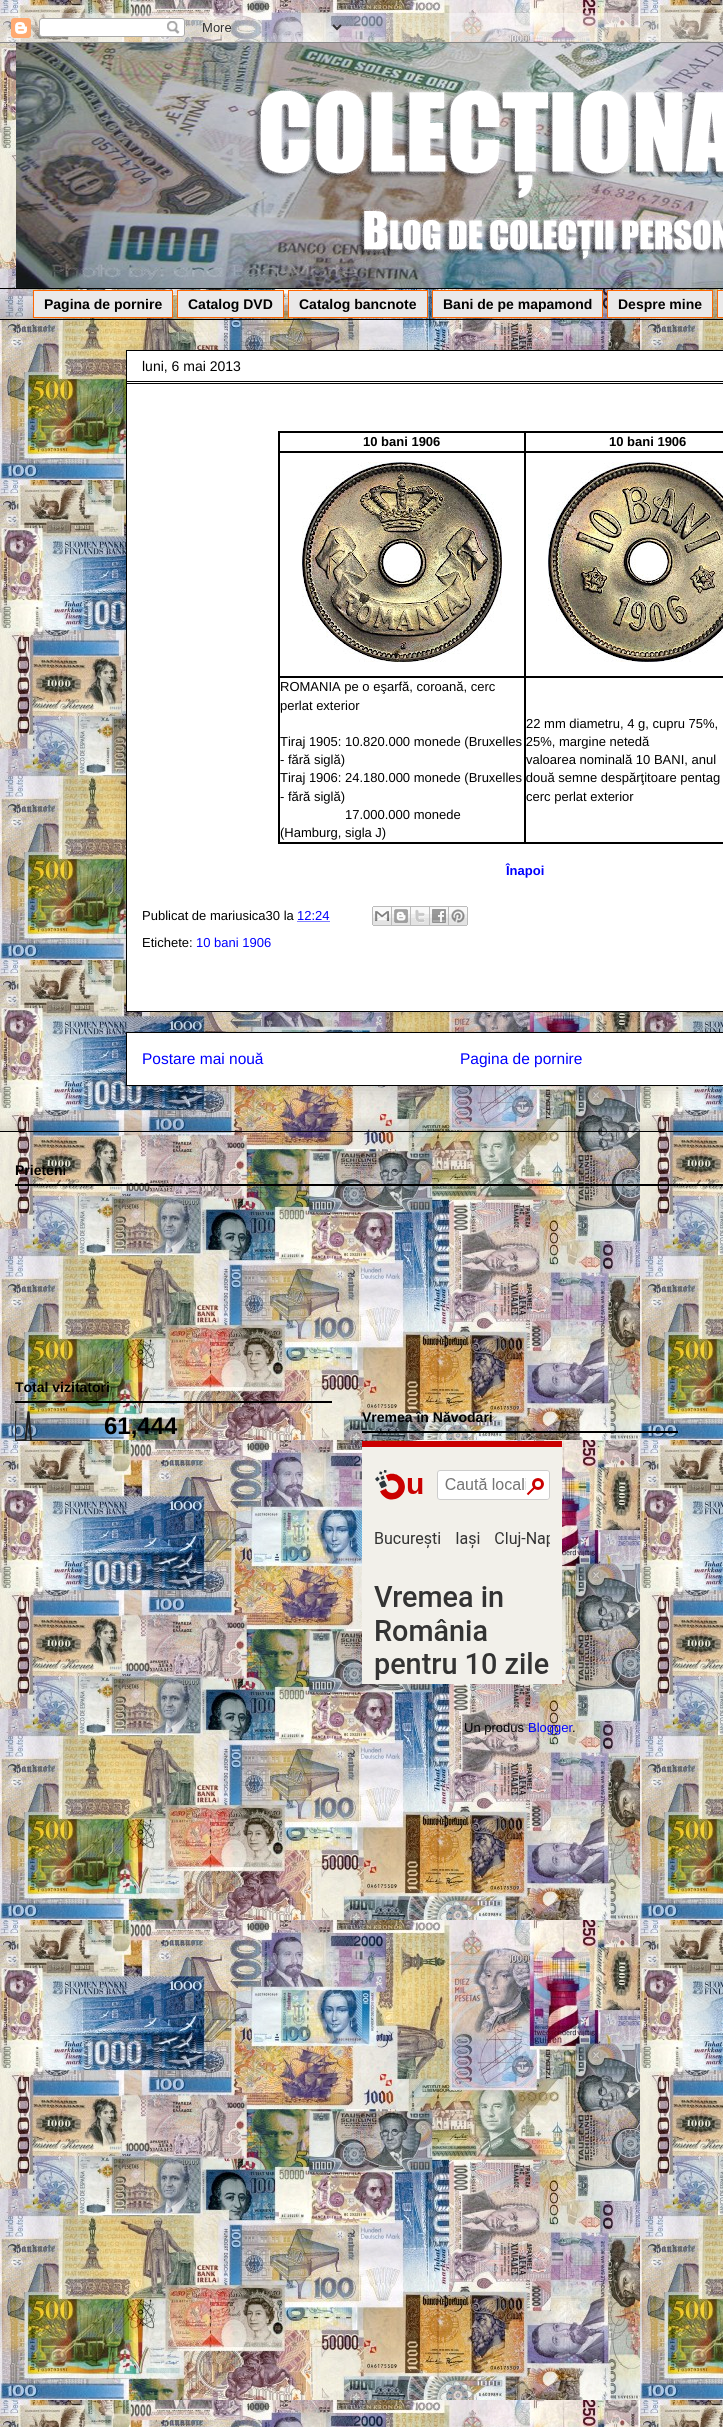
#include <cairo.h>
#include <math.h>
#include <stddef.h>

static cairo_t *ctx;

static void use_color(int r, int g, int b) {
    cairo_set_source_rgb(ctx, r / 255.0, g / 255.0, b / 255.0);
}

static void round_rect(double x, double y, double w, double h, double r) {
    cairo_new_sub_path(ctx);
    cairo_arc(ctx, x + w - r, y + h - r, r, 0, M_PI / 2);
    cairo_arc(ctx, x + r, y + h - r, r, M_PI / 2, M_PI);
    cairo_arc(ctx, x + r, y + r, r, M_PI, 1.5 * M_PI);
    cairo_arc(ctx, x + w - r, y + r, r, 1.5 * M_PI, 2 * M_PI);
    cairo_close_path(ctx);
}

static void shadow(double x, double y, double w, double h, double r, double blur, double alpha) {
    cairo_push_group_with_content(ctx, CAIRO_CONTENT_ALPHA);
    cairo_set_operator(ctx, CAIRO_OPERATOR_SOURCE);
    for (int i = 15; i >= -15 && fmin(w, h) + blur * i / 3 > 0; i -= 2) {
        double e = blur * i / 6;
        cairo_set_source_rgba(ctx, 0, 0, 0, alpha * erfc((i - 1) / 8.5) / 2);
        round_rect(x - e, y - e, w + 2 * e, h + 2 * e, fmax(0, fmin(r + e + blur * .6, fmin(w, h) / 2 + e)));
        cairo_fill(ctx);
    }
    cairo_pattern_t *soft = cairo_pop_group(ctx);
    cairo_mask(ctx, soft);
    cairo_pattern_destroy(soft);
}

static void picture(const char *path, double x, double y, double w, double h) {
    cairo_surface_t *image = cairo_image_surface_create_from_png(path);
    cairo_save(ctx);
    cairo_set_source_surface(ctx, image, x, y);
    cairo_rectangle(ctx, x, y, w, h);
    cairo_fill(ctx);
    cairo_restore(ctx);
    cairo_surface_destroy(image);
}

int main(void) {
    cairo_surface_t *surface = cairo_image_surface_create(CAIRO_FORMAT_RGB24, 723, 2427);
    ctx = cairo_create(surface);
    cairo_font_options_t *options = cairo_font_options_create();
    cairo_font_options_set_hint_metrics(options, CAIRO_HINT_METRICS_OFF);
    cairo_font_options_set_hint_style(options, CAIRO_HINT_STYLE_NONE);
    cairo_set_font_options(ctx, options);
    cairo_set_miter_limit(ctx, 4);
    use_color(255, 255, 255);
    cairo_paint(ctx);
    picture("img1.png", 0, 0, 723, 2427);
    picture("img2.png", 0, 13, 723, 30);
    picture("img3.png", 16, 43, 707, 245);
    picture("img4.png", 0, 294, 723, 25);
    use_color(0, 0, 0);
    cairo_rectangle(ctx, 0, 288, 723, 1);
    cairo_fill(ctx);
    use_color(234, 233, 233);
    cairo_rectangle(ctx, 33.5, 290.5, 139, 27);
    cairo_fill_preserve(ctx);
    use_color(255, 103, 2);
    cairo_set_line_width(ctx, 1);
    cairo_stroke(ctx);
    cairo_select_font_face(ctx, "Liberation Sans", CAIRO_FONT_SLANT_NORMAL, CAIRO_FONT_WEIGHT_BOLD);
    cairo_set_font_size(ctx, 14);
    use_color(0, 0, 0);
    cairo_move_to(ctx, 44, 309);
    cairo_show_text(ctx, "Pagina de pornire");
    use_color(234, 233, 233);
    cairo_rectangle(ctx, 177.5, 290.5, 106, 27);
    cairo_fill_preserve(ctx);
    use_color(255, 103, 2);
    cairo_stroke(ctx);
    use_color(0, 0, 0);
    cairo_move_to(ctx, 188, 309);
    cairo_show_text(ctx, "Catalog DVD");
    use_color(234, 233, 233);
    cairo_rectangle(ctx, 288.5, 290.5, 139, 27);
    cairo_fill_preserve(ctx);
    use_color(255, 103, 2);
    cairo_stroke(ctx);
    use_color(0, 0, 0);
    cairo_move_to(ctx, 299, 309);
    cairo_show_text(ctx, "Catalog bancnote");
    use_color(234, 233, 233);
    cairo_rectangle(ctx, 432.5, 290.5, 170, 27);
    cairo_fill_preserve(ctx);
    use_color(255, 103, 2);
    cairo_stroke(ctx);
    use_color(0, 0, 0);
    cairo_move_to(ctx, 443, 309);
    cairo_show_text(ctx, "Bani de pe mapamond");
    use_color(234, 233, 233);
    cairo_rectangle(ctx, 607.5, 290.5, 105, 27);
    cairo_fill_preserve(ctx);
    use_color(255, 103, 2);
    cairo_stroke(ctx);
    use_color(0, 0, 0);
    cairo_move_to(ctx, 618, 309);
    cairo_show_text(ctx, "Despre mine");
    use_color(234, 233, 233);
    cairo_rectangle(ctx, 717.5, 290.5, 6, 27);
    cairo_fill_preserve(ctx);
    use_color(255, 103, 2);
    cairo_stroke(ctx);
    use_color(0, 0, 0);
    cairo_rectangle(ctx, 0, 319, 723, 1);
    cairo_fill(ctx);
    use_color(0, 0, 0);
    shadow(126, 1032, 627, 54, 0, 10, 0.2);
    use_color(255, 255, 255);
    cairo_rectangle(ctx, 126.5, 1032.5, 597, 53);
    cairo_fill_preserve(ctx);
    use_color(0, 0, 0);
    cairo_stroke(ctx);
    use_color(0, 0, 0);
    shadow(126, 350, 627, 662, 0, 10, 0.2);
    use_color(255, 255, 255);
    cairo_rectangle(ctx, 126.5, 350.5, 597, 661);
    cairo_fill_preserve(ctx);
    use_color(0, 0, 0);
    cairo_stroke(ctx);
    cairo_rectangle(ctx, 127, 381, 596, 1);
    cairo_fill(ctx);
    cairo_select_font_face(ctx, "Liberation Sans", CAIRO_FONT_SLANT_NORMAL, CAIRO_FONT_WEIGHT_NORMAL);
    cairo_move_to(ctx, 142, 371);
    cairo_show_text(ctx, "luni, 6 mai 2013");
    cairo_rectangle(ctx, 127, 383, 596, 1);
    cairo_fill(ctx);
    cairo_rectangle(ctx, 278.5, 431.5, 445, 412);
    cairo_stroke(ctx);
    cairo_rectangle(ctx, 279.5, 432.5, 245, 19);
    cairo_stroke(ctx);
    cairo_select_font_face(ctx, "Liberation Sans", CAIRO_FONT_SLANT_NORMAL, CAIRO_FONT_WEIGHT_BOLD);
    cairo_set_font_size(ctx, 13);
    cairo_move_to(ctx, 363, 446);
    cairo_show_text(ctx, "10 bani 1906");
    cairo_rectangle(ctx, 525.5, 432.5, 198, 19);
    cairo_stroke(ctx);
    cairo_move_to(ctx, 609, 446);
    cairo_show_text(ctx, "10 bani 1906");
    cairo_rectangle(ctx, 279.5, 452.5, 245, 224);
    cairo_stroke(ctx);
    picture("img5.png", 302, 462, 200, 200);
    cairo_rectangle(ctx, 525.5, 452.5, 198, 224);
    cairo_stroke(ctx);
    picture("img6.png", 548, 462, 175, 200);
    cairo_rectangle(ctx, 279.5, 677.5, 245, 165);
    cairo_stroke(ctx);
    cairo_select_font_face(ctx, "Liberation Sans", CAIRO_FONT_SLANT_NORMAL, CAIRO_FONT_WEIGHT_NORMAL);
    cairo_move_to(ctx, 280, 691);
    cairo_show_text(ctx, "ROMANIA pe o eşarfă, coroană, cerc");
    cairo_move_to(ctx, 280, 710);
    cairo_show_text(ctx, "perlat exterior");
    cairo_rectangle(ctx, 525.5, 677.5, 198, 165);
    cairo_stroke(ctx);
    cairo_move_to(ctx, 280, 746);
    cairo_show_text(ctx, "Tiraj 1905: 10.820.000 monede (Bruxelles 25%, margine netedă");
    cairo_move_to(ctx, 280, 764);
    cairo_show_text(ctx, "- fără siglă)");
    cairo_move_to(ctx, 280, 782);
    cairo_show_text(ctx, "Tiraj 1906: 24.180.000 monede (Bruxelles două semne despărţitoare pentag");
    cairo_move_to(ctx, 280, 801);
    cairo_show_text(ctx, "- fără siglă)");
    cairo_move_to(ctx, 345, 819);
    cairo_show_text(ctx, "17.000.000 monede");
    cairo_move_to(ctx, 280, 837);
    cairo_show_text(ctx, "(Hamburg, sigla J)");
    cairo_move_to(ctx, 526, 728);
    cairo_show_text(ctx, "22 mm diametru, 4 g, cupru 75%,");
    cairo_move_to(ctx, 526, 764);
    cairo_show_text(ctx, "valoarea nominală 10 BANI, anul");
    cairo_move_to(ctx, 526, 801);
    cairo_show_text(ctx, "cerc perlat exterior");
    cairo_select_font_face(ctx, "Liberation Sans", CAIRO_FONT_SLANT_NORMAL, CAIRO_FONT_WEIGHT_BOLD);
    use_color(0, 0, 255);
    cairo_move_to(ctx, 506, 875);
    cairo_show_text(ctx, "Înapoi");
    cairo_select_font_face(ctx, "Liberation Sans", CAIRO_FONT_SLANT_NORMAL, CAIRO_FONT_WEIGHT_NORMAL);
    use_color(0, 0, 0);
    cairo_move_to(ctx, 142, 920);
    cairo_show_text(ctx, "Publicat de mariusica30 la");
    use_color(0, 0, 255);
    cairo_move_to(ctx, 297, 920);
    cairo_show_text(ctx, "12:24");
    cairo_new_path(ctx);
    cairo_move_to(ctx, 297.5, 921.5);
    cairo_line_to(ctx, 330, 921.5);
    cairo_set_dash(ctx, (double[]){1, 1}, 2, 0);
    cairo_stroke(ctx);
    picture("img7.png", 372, 906, 20, 20);
    picture("img8.png", 392, 906, 19, 20);
    picture("img9.png", 411, 906, 19, 20);
    picture("img10.png", 430, 906, 19, 20);
    picture("img11.png", 449, 906, 19, 20);
    use_color(0, 0, 0);
    cairo_move_to(ctx, 142, 947);
    cairo_show_text(ctx, "Etichete:");
    use_color(0, 0, 255);
    cairo_move_to(ctx, 196, 947);
    cairo_show_text(ctx, "10 bani 1906");
    cairo_set_font_size(ctx, 15.5);
    cairo_move_to(ctx, 142, 1064);
    cairo_show_text(ctx, "Postare mai nouă");
    cairo_move_to(ctx, 460, 1064);
    cairo_show_text(ctx, "Pagina de pornire");
    cairo_save(ctx);
    cairo_rectangle(ctx, 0, 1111, 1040, 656);
    cairo_clip(ctx);
    cairo_rectangle(ctx, 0, 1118, 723, 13);
    cairo_clip(ctx);
    use_color(0, 0, 0);
    shadow(-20, 1131, 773, 636, 0, 10, 0.2);
    cairo_restore(ctx);
    use_color(0, 0, 0);
    cairo_rectangle(ctx, 0, 1131, 723, 1);
    cairo_fill(ctx);
    cairo_select_font_face(ctx, "Liberation Sans", CAIRO_FONT_SLANT_NORMAL, CAIRO_FONT_WEIGHT_BOLD);
    cairo_set_font_size(ctx, 14);
    cairo_move_to(ctx, 15, 1175);
    cairo_show_text(ctx, "Prieteni");
    cairo_rectangle(ctx, 15, 1184, 708, 2);
    cairo_fill(ctx);
    cairo_move_to(ctx, 15, 1392);
    cairo_show_text(ctx, "Total vizitatori");
    cairo_rectangle(ctx, 15, 1401, 317, 2);
    cairo_fill(ctx);
    use_color(51, 51, 51);
    cairo_rectangle(ctx, 15, 1411, 1, 30);
    cairo_fill(ctx);
    cairo_set_source_rgba(ctx, 0, 0, 0, 0.1);
    cairo_rectangle(ctx, 16, 1411, 74, 29);
    cairo_fill(ctx);
    cairo_set_source_rgba(ctx, 0.125, 0.125, 0.125, 0.3);
    cairo_new_path(ctx);
    cairo_move_to(ctx, 16, 1440);
    cairo_line_to(ctx, 26, 1440);
    cairo_line_to(ctx, 28, 1412);
    cairo_line_to(ctx, 31, 1440);
    cairo_line_to(ctx, 90, 1440);
    cairo_close_path(ctx);
    cairo_fill(ctx);
    use_color(51, 51, 51);
    cairo_rectangle(ctx, 15, 1440, 75, 1);
    cairo_fill(ctx);
    cairo_save(ctx);
    cairo_rectangle(ctx, 15, 1411, 75, 30);
    cairo_clip(ctx);
    cairo_new_path(ctx);
    cairo_move_to(ctx, 15.5, 1440.5);
    cairo_line_to(ctx, 25.5, 1440);
    cairo_line_to(ctx, 28.5, 1411.5);
    cairo_line_to(ctx, 31, 1440.5);
    cairo_line_to(ctx, 89.5, 1440.5);
    use_color(32, 32, 32);
    cairo_set_line_width(ctx, 2);
    cairo_set_dash(ctx, NULL, 0, 0);
    cairo_stroke(ctx);
    cairo_restore(ctx);
    cairo_set_font_size(ctx, 24);
    use_color(0, 0, 0);
    cairo_move_to(ctx, 104, 1434);
    cairo_show_text(ctx, "61,444");
    cairo_set_font_size(ctx, 14);
    cairo_move_to(ctx, 362, 1422);
    cairo_show_text(ctx, "Vremea în Năvodari");
    cairo_rectangle(ctx, 362, 1431, 316, 2);
    cairo_fill(ctx);
    picture("img12.png", 362, 1441, 200, 243);
    cairo_select_font_face(ctx, "Liberation Sans", CAIRO_FONT_SLANT_NORMAL, CAIRO_FONT_WEIGHT_NORMAL);
    cairo_set_font_size(ctx, 13);
    cairo_move_to(ctx, 464, 1732);
    cairo_show_text(ctx, "Un produs");
    use_color(0, 0, 255);
    cairo_move_to(ctx, 528, 1732);
    cairo_show_text(ctx, "Blogger");
    use_color(0, 0, 0);
    cairo_move_to(ctx, 572, 1732);
    cairo_show_text(ctx, ".");
    cairo_surface_write_to_png(surface, "result.png");
    cairo_font_options_destroy(options);
    cairo_destroy(ctx);
    cairo_surface_destroy(surface);
    return 0;
}
